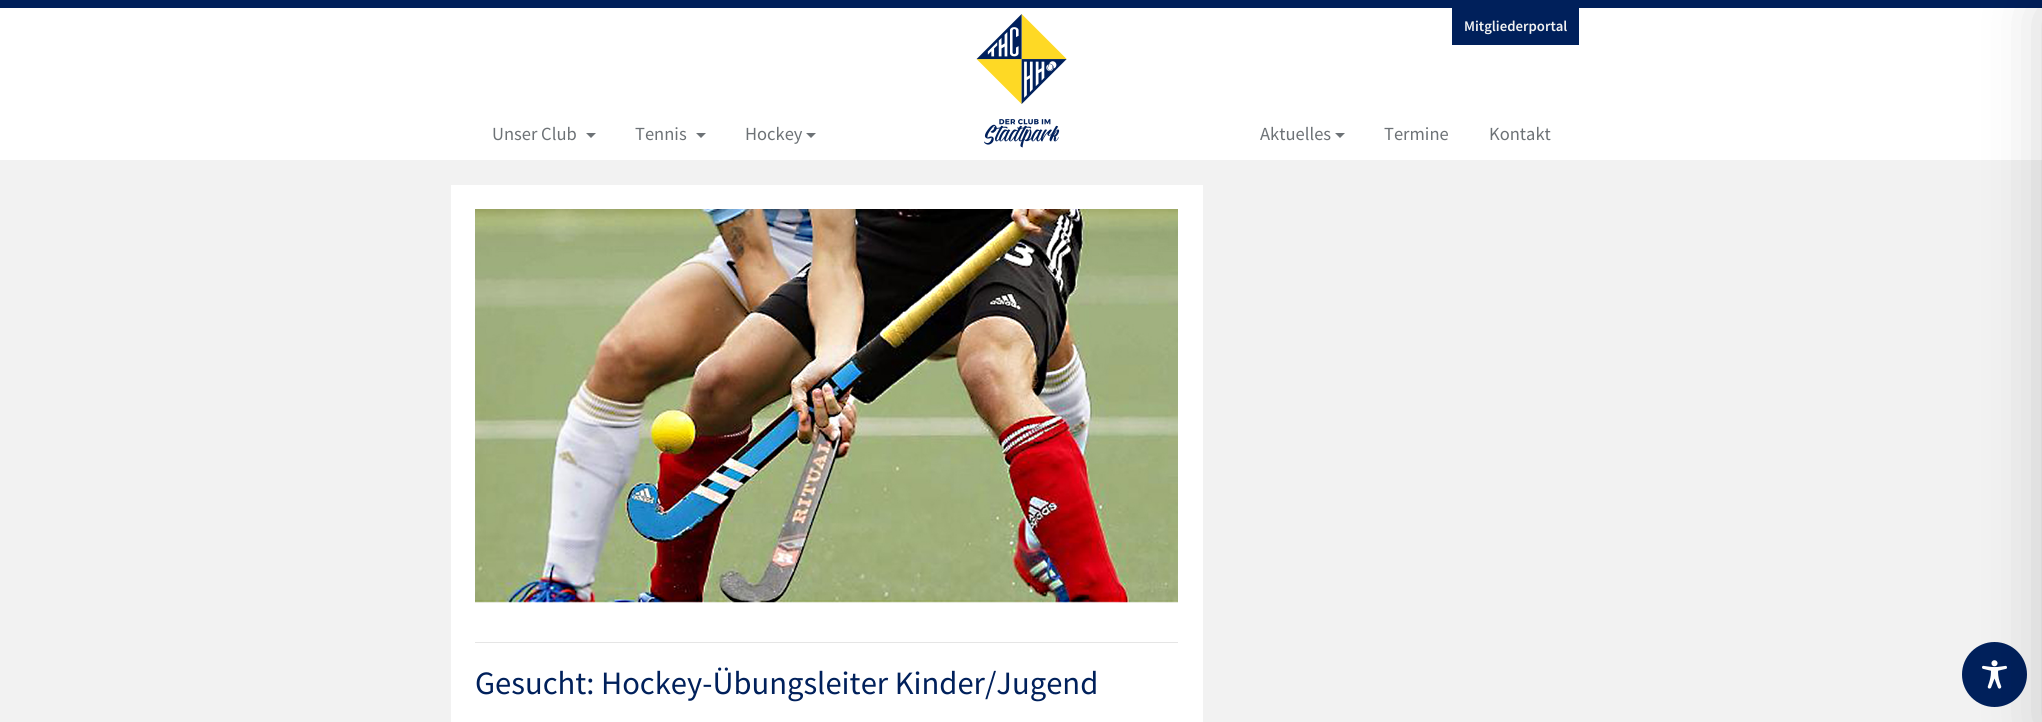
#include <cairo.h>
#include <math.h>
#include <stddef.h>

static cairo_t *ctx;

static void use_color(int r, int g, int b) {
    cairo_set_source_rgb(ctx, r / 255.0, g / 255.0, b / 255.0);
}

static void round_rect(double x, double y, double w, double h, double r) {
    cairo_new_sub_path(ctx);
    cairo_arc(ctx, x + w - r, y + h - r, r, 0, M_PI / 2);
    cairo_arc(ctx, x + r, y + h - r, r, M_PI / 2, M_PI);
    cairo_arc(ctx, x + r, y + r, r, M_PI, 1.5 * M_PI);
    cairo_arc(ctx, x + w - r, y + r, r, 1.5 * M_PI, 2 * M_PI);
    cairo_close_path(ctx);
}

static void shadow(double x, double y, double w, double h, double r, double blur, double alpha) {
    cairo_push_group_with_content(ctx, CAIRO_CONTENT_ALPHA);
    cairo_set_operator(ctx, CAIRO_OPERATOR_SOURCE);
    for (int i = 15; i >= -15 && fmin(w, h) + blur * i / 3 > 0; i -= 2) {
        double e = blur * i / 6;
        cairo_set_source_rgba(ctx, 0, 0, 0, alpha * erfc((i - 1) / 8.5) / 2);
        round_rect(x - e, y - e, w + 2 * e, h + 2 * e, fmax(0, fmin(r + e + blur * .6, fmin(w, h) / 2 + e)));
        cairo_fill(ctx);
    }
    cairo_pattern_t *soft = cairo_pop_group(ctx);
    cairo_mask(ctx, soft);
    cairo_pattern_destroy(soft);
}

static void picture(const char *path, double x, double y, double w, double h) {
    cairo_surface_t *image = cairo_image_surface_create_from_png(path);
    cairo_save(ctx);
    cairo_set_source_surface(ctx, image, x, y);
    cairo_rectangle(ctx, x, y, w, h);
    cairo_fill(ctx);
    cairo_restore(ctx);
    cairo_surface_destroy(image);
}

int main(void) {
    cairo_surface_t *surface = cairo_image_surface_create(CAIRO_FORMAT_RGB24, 2042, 722);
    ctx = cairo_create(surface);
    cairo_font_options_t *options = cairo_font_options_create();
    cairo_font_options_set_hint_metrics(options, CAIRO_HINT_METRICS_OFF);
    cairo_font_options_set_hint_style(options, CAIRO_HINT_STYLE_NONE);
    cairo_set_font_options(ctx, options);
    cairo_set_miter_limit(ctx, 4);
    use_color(242, 242, 242);
    cairo_paint(ctx);
    use_color(255, 255, 255);
    cairo_rectangle(ctx, 0, 8, 2042, 152);
    cairo_fill(ctx);
    use_color(0, 32, 91);
    cairo_rectangle(ctx, 0, 0, 2042, 8);
    cairo_fill(ctx);
    picture("img1.png", 976, 14, 91, 134);
    cairo_select_font_face(ctx, "Source Sans Pro", CAIRO_FONT_SLANT_NORMAL, CAIRO_FONT_WEIGHT_NORMAL);
    cairo_set_font_size(ctx, 18.5);
    use_color(109, 114, 118);
    cairo_move_to(ctx, 492, 140);
    cairo_show_text(ctx, "Unser Club");
    cairo_new_path(ctx);
    cairo_move_to(ctx, 586, 133);
    cairo_line_to(ctx, 596, 133);
    cairo_line_to(ctx, 591, 138);
    cairo_close_path(ctx);
    cairo_fill(ctx);
    cairo_move_to(ctx, 635, 140);
    cairo_show_text(ctx, "Tennis");
    cairo_new_path(ctx);
    cairo_move_to(ctx, 696, 133);
    cairo_line_to(ctx, 706, 133);
    cairo_line_to(ctx, 701, 138);
    cairo_close_path(ctx);
    cairo_fill(ctx);
    cairo_move_to(ctx, 745, 140);
    cairo_show_text(ctx, "Hockey");
    cairo_new_path(ctx);
    cairo_move_to(ctx, 806, 133);
    cairo_line_to(ctx, 816, 133);
    cairo_line_to(ctx, 811, 138);
    cairo_close_path(ctx);
    cairo_fill(ctx);
    use_color(0, 32, 91);
    cairo_rectangle(ctx, 1452, 8, 127, 37);
    cairo_fill(ctx);
    cairo_select_font_face(ctx, "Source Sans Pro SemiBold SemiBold", CAIRO_FONT_SLANT_NORMAL, CAIRO_FONT_WEIGHT_NORMAL);
    cairo_set_font_size(ctx, 14.75);
    use_color(242, 242, 242);
    cairo_move_to(ctx, 1464, 31);
    cairo_show_text(ctx, "Mitgliederportal");
    cairo_select_font_face(ctx, "Source Sans Pro", CAIRO_FONT_SLANT_NORMAL, CAIRO_FONT_WEIGHT_NORMAL);
    cairo_set_font_size(ctx, 18.5);
    use_color(109, 114, 118);
    cairo_move_to(ctx, 1260, 140);
    cairo_show_text(ctx, "Aktuelles");
    cairo_new_path(ctx);
    cairo_move_to(ctx, 1335, 133);
    cairo_line_to(ctx, 1345, 133);
    cairo_line_to(ctx, 1340, 138);
    cairo_close_path(ctx);
    cairo_fill(ctx);
    cairo_move_to(ctx, 1384, 140);
    cairo_show_text(ctx, "Termine");
    cairo_move_to(ctx, 1489, 140);
    cairo_show_text(ctx, "Kontakt");
    use_color(0, 32, 91);
    cairo_new_path(ctx);
    cairo_arc(ctx, 1994.5, 674.5, 32.5, 0, 2 * M_PI);
    cairo_fill(ctx);
    picture("img3.png", 1982, 660, 25, 29);
    use_color(0, 0, 0);
    shadow(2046, 10, 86, 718, 0, 30, 0.2);
    use_color(255, 255, 255);
    cairo_rectangle(ctx, 451, 185, 752, 537);
    cairo_fill(ctx);
    picture("img2.png", 475, 209, 703, 394);
    use_color(229, 229, 229);
    cairo_rectangle(ctx, 475, 642, 703, 1);
    cairo_fill(ctx);
    cairo_set_font_size(ctx, 32.6);
    use_color(0, 32, 91);
    cairo_move_to(ctx, 475, 694);
    cairo_show_text(ctx, "Gesucht: Hockey-Übungsleiter Kinder/Jugend");
    cairo_surface_write_to_png(surface, "result.png");
    cairo_font_options_destroy(options);
    cairo_destroy(ctx);
    cairo_surface_destroy(surface);
    return 0;
}
